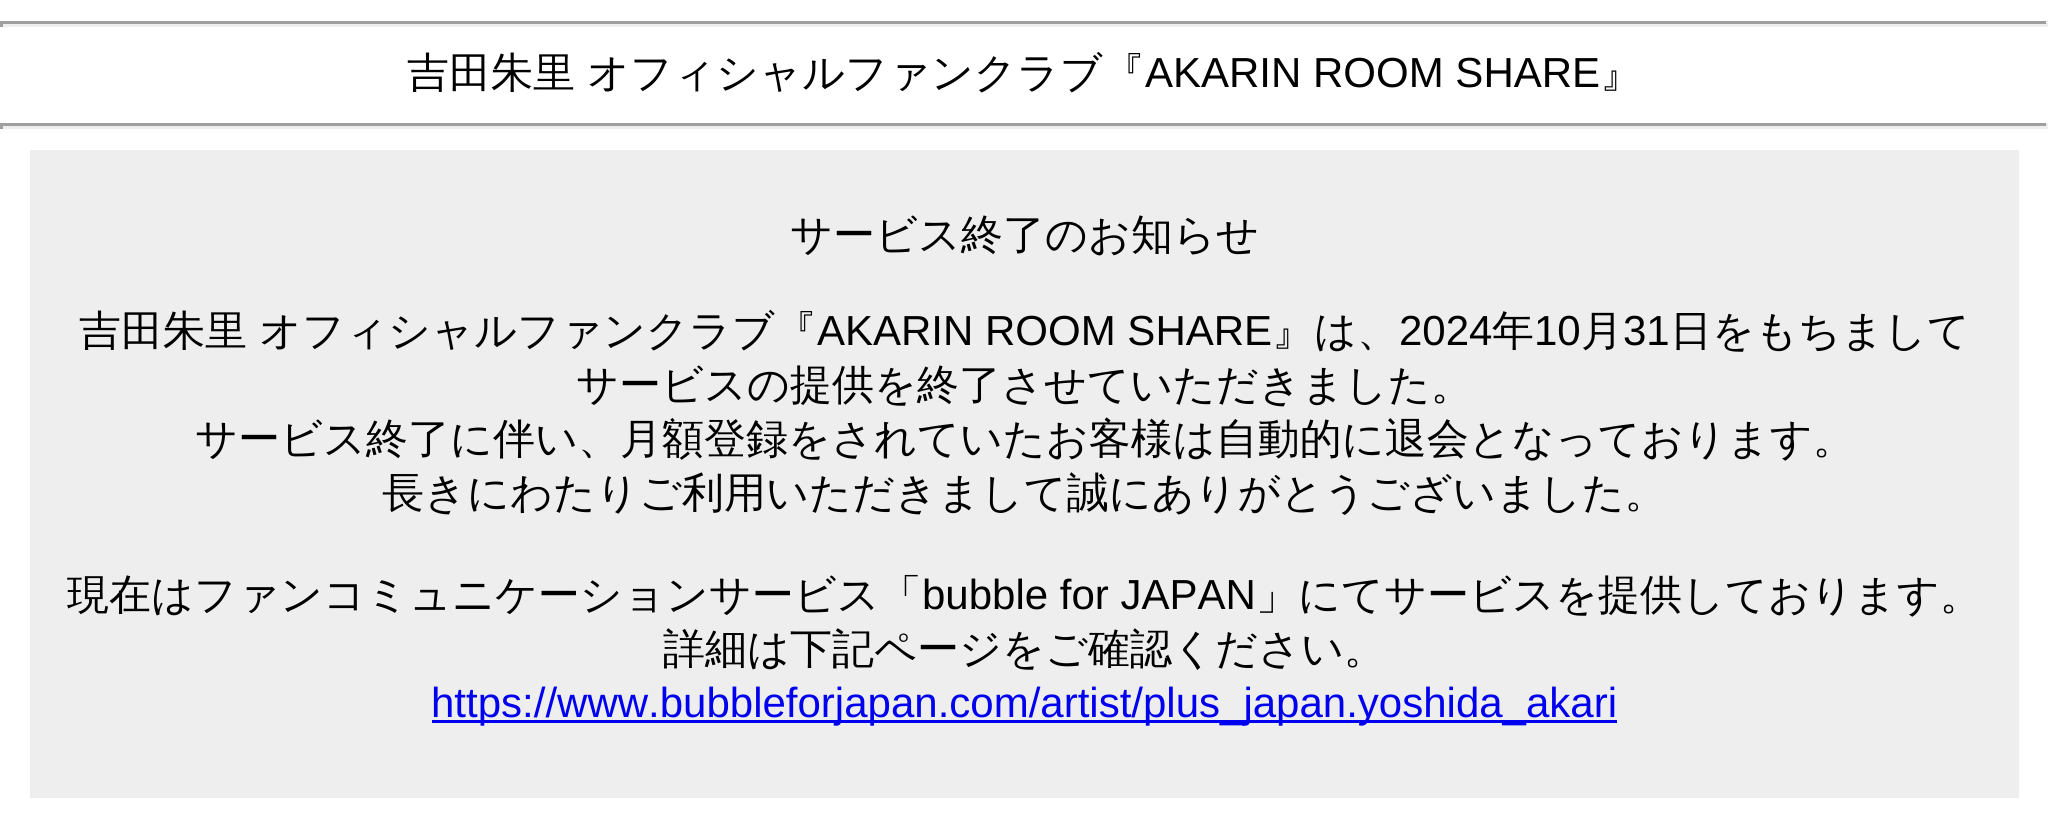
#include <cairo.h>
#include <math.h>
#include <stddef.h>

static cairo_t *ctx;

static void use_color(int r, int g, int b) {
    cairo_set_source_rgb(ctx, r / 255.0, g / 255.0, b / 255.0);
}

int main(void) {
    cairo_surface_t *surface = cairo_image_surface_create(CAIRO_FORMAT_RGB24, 2048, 827);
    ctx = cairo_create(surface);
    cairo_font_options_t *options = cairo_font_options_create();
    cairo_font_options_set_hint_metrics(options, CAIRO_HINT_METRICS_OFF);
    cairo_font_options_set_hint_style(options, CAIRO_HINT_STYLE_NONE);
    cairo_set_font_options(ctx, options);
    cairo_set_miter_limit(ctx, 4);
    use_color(255, 255, 255);
    cairo_paint(ctx);
    use_color(159, 159, 159);
    cairo_rectangle(ctx, 0, 21, 2048, 3);
    cairo_fill(ctx);
    use_color(238, 238, 238);
    cairo_rectangle(ctx, 2046, 21, 2, 6);
    cairo_fill(ctx);
    cairo_rectangle(ctx, 0, 24, 2048, 3);
    cairo_fill(ctx);
    use_color(159, 159, 159);
    cairo_rectangle(ctx, 0, 21, 3, 6);
    cairo_fill(ctx);
    cairo_select_font_face(ctx, "WenQuanYi Zen Hei Medium", CAIRO_FONT_SLANT_NORMAL, CAIRO_FONT_WEIGHT_NORMAL);
    cairo_set_font_size(ctx, 42);
    use_color(0, 0, 0);
    cairo_move_to(ctx, 407, 87);
    cairo_show_text(ctx, "吉田朱里");
    cairo_move_to(ctx, 587, 87);
    cairo_show_text(ctx, "オフィシャルファンクラブ『");
    cairo_select_font_face(ctx, "Liberation Sans", CAIRO_FONT_SLANT_NORMAL, CAIRO_FONT_WEIGHT_NORMAL);
    cairo_move_to(ctx, 1145, 87);
    cairo_show_text(ctx, "AKARIN ROOM SHARE");
    cairo_select_font_face(ctx, "WenQuanYi Zen Hei Medium", CAIRO_FONT_SLANT_NORMAL, CAIRO_FONT_WEIGHT_NORMAL);
    cairo_move_to(ctx, 1600, 87);
    cairo_show_text(ctx, "』");
    use_color(159, 159, 159);
    cairo_rectangle(ctx, 0, 123, 2048, 3);
    cairo_fill(ctx);
    use_color(238, 238, 238);
    cairo_rectangle(ctx, 2046, 123, 2, 6);
    cairo_fill(ctx);
    cairo_rectangle(ctx, 0, 126, 2048, 3);
    cairo_fill(ctx);
    use_color(159, 159, 159);
    cairo_rectangle(ctx, 0, 123, 3, 6);
    cairo_fill(ctx);
    use_color(238, 238, 238);
    cairo_rectangle(ctx, 30, 150, 1989, 648);
    cairo_fill(ctx);
    use_color(0, 0, 0);
    cairo_move_to(ctx, 790, 249);
    cairo_show_text(ctx, "サービス終了のお知らせ");
    cairo_move_to(ctx, 79, 345);
    cairo_show_text(ctx, "吉田朱里");
    cairo_move_to(ctx, 259, 345);
    cairo_show_text(ctx, "オフィシャルファンクラブ『");
    cairo_select_font_face(ctx, "Liberation Sans", CAIRO_FONT_SLANT_NORMAL, CAIRO_FONT_WEIGHT_NORMAL);
    cairo_move_to(ctx, 817, 345);
    cairo_show_text(ctx, "AKARIN ROOM SHARE");
    cairo_select_font_face(ctx, "WenQuanYi Zen Hei Medium", CAIRO_FONT_SLANT_NORMAL, CAIRO_FONT_WEIGHT_NORMAL);
    cairo_move_to(ctx, 1272, 345);
    cairo_show_text(ctx, "』は、");
    cairo_select_font_face(ctx, "Liberation Sans", CAIRO_FONT_SLANT_NORMAL, CAIRO_FONT_WEIGHT_NORMAL);
    cairo_move_to(ctx, 1399, 345);
    cairo_show_text(ctx, "2024");
    cairo_select_font_face(ctx, "WenQuanYi Zen Hei Medium", CAIRO_FONT_SLANT_NORMAL, CAIRO_FONT_WEIGHT_NORMAL);
    cairo_move_to(ctx, 1492, 345);
    cairo_show_text(ctx, "年");
    cairo_select_font_face(ctx, "Liberation Sans", CAIRO_FONT_SLANT_NORMAL, CAIRO_FONT_WEIGHT_NORMAL);
    cairo_move_to(ctx, 1534, 345);
    cairo_show_text(ctx, "10");
    cairo_select_font_face(ctx, "WenQuanYi Zen Hei Medium", CAIRO_FONT_SLANT_NORMAL, CAIRO_FONT_WEIGHT_NORMAL);
    cairo_move_to(ctx, 1581, 345);
    cairo_show_text(ctx, "月");
    cairo_select_font_face(ctx, "Liberation Sans", CAIRO_FONT_SLANT_NORMAL, CAIRO_FONT_WEIGHT_NORMAL);
    cairo_move_to(ctx, 1623, 345);
    cairo_show_text(ctx, "31");
    cairo_select_font_face(ctx, "WenQuanYi Zen Hei Medium", CAIRO_FONT_SLANT_NORMAL, CAIRO_FONT_WEIGHT_NORMAL);
    cairo_move_to(ctx, 1670, 345);
    cairo_show_text(ctx, "日をもちまして");
    cairo_move_to(ctx, 576, 399);
    cairo_show_text(ctx, "サービスの提供を終了させていただきました。");
    cairo_move_to(ctx, 195, 453);
    cairo_show_text(ctx, "サービス終了に伴い、月額登録をされていたお客様は自動的に退会となっております。");
    cairo_move_to(ctx, 382, 507);
    cairo_show_text(ctx, "長きにわたりご利用いただきまして誠にありがとうございました。");
    cairo_move_to(ctx, 67, 609);
    cairo_show_text(ctx, "現在はファンコミュニケーションサービス「");
    cairo_select_font_face(ctx, "Liberation Sans", CAIRO_FONT_SLANT_NORMAL, CAIRO_FONT_WEIGHT_NORMAL);
    cairo_move_to(ctx, 922, 609);
    cairo_show_text(ctx, "bubble for JAPAN");
    cairo_select_font_face(ctx, "WenQuanYi Zen Hei Medium", CAIRO_FONT_SLANT_NORMAL, CAIRO_FONT_WEIGHT_NORMAL);
    cairo_move_to(ctx, 1256, 609);
    cairo_show_text(ctx, "」にてサービスを提供しております。");
    cairo_move_to(ctx, 663, 663);
    cairo_show_text(ctx, "詳細は下記ページをご確認ください。");
    use_color(0, 0, 238);
    cairo_rectangle(ctx, 432, 720, 1185, 3);
    cairo_fill(ctx);
    cairo_select_font_face(ctx, "Liberation Sans", CAIRO_FONT_SLANT_NORMAL, CAIRO_FONT_WEIGHT_NORMAL);
    cairo_move_to(ctx, 431, 717);
    cairo_show_text(ctx, "https://www.bubbleforjapan.com/artist/plus_japan.yoshida_akari");
    cairo_surface_write_to_png(surface, "result.png");
    cairo_font_options_destroy(options);
    cairo_destroy(ctx);
    cairo_surface_destroy(surface);
    return 0;
}
